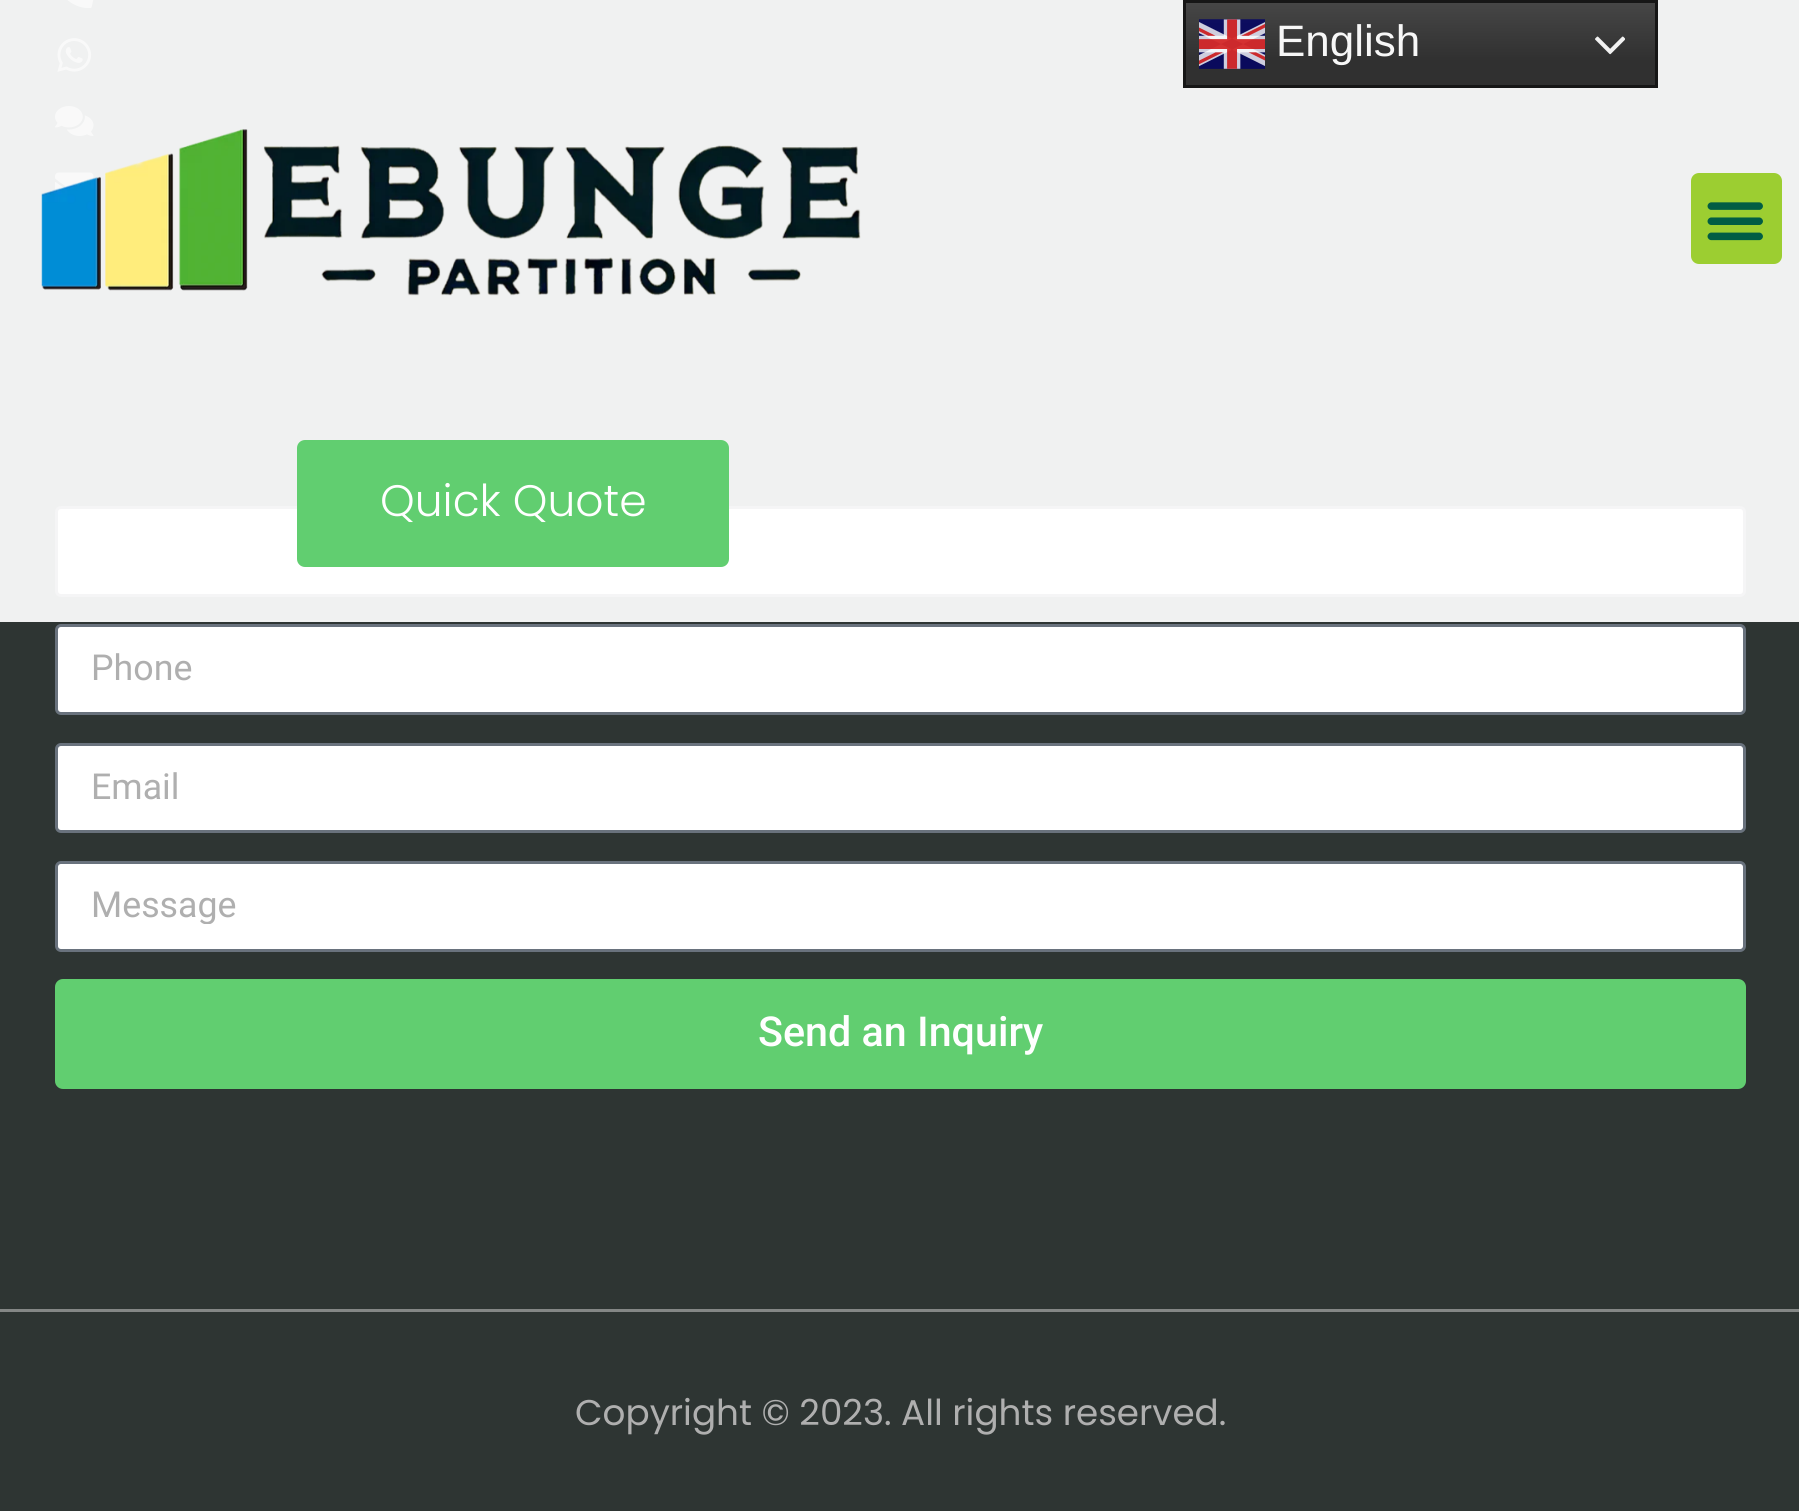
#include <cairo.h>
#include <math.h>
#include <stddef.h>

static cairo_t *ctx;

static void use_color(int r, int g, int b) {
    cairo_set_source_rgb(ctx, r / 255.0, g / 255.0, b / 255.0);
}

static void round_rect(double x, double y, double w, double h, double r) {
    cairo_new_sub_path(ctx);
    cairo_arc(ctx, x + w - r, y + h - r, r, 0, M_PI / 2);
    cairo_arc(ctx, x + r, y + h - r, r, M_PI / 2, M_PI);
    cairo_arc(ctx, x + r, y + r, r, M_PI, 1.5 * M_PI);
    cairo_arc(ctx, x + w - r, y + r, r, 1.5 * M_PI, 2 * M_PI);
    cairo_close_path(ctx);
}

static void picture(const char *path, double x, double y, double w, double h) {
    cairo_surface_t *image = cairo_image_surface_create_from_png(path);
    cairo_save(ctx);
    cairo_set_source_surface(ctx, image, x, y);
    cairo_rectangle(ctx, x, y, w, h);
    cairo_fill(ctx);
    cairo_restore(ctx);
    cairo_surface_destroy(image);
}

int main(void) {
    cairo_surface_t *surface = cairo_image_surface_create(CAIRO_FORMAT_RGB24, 1799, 1511);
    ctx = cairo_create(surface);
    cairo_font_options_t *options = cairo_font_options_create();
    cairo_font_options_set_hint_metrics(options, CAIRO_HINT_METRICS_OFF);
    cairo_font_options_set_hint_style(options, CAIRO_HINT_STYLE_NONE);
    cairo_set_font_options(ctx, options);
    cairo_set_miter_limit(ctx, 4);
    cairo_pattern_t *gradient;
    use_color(46, 53, 51);
    cairo_paint(ctx);
    use_color(240, 241, 241);
    cairo_rectangle(ctx, 0, 0, 1799, 622);
    cairo_fill(ctx);
    gradient = cairo_pattern_create_linear(1420, 0, 1420, 88);
    cairo_pattern_add_color_stop_rgba(gradient, 0, 0.278, 0.278, 0.278, 1);
    cairo_pattern_add_color_stop_rgba(gradient, 0.7, 0.188, 0.188, 0.188, 1);
    cairo_set_source(ctx, gradient);
    cairo_pattern_destroy(gradient);
    cairo_rectangle(ctx, 1186, 3, 469, 82);
    cairo_fill(ctx);
    cairo_rectangle(ctx, 1184.5, 1.5, 472, 85);
    use_color(22, 22, 22);
    cairo_set_line_width(ctx, 3);
    cairo_stroke(ctx);
    picture("img1.png", 1199, 19, 66, 50);
    cairo_select_font_face(ctx, "Liberation Sans", CAIRO_FONT_SLANT_NORMAL, CAIRO_FONT_WEIGHT_NORMAL);
    cairo_set_font_size(ctx, 44);
    use_color(247, 247, 247);
    cairo_move_to(ctx, 1276, 56);
    cairo_show_text(ctx, "English");
    picture("img2.png", 1595, 36, 30, 19);
    picture("img7.png", 55, 106, 39, 30);
    picture("img8.png", 55, 172, 39, 20);
    picture("img3.png", 41, 129, 820, 167);
    use_color(156, 206, 49);
    round_rect(1691, 173, 91, 91, 8);
    cairo_fill(ctx);
    picture("img4.png", 1707, 202, 56, 39);
    use_color(255, 255, 255);
    round_rect(56.5, 507.5, 1688, 88, 4.5);
    cairo_fill_preserve(ctx);
    use_color(245, 245, 246);
    cairo_stroke(ctx);
    use_color(97, 206, 112);
    round_rect(297, 440, 432, 127, 8);
    cairo_fill(ctx);
    cairo_select_font_face(ctx, "Poppins Light", CAIRO_FONT_SLANT_NORMAL, CAIRO_FONT_WEIGHT_NORMAL);
    use_color(255, 255, 255);
    cairo_move_to(ctx, 380, 516);
    cairo_show_text(ctx, "Quick Quote");
    picture("img5.png", 67, 0, 27, 8);
    picture("img6.png", 57, 38, 35, 34);
    round_rect(56.5, 625.5, 1688, 88, 4.5);
    cairo_fill_preserve(ctx);
    use_color(105, 114, 125);
    cairo_stroke(ctx);
    cairo_select_font_face(ctx, "Roboto", CAIRO_FONT_SLANT_NORMAL, CAIRO_FONT_WEIGHT_NORMAL);
    cairo_set_font_size(ctx, 35.75);
    use_color(175, 175, 175);
    cairo_move_to(ctx, 91, 680);
    cairo_show_text(ctx, "Phone");
    use_color(255, 255, 255);
    round_rect(56.5, 744.5, 1688, 87, 4.5);
    cairo_fill_preserve(ctx);
    use_color(105, 114, 125);
    cairo_stroke(ctx);
    use_color(175, 175, 175);
    cairo_move_to(ctx, 91, 799);
    cairo_show_text(ctx, "Email");
    use_color(255, 255, 255);
    round_rect(56.5, 862.5, 1688, 88, 4.5);
    cairo_fill_preserve(ctx);
    use_color(105, 114, 125);
    cairo_stroke(ctx);
    cairo_save(ctx);
    cairo_rectangle(ctx, 91, 883, 1620, 41);
    cairo_clip(ctx);
    use_color(175, 175, 175);
    cairo_move_to(ctx, 91, 917);
    cairo_show_text(ctx, "Message");
    cairo_restore(ctx);
    use_color(97, 206, 112);
    round_rect(55, 979, 1691, 110, 8);
    cairo_fill(ctx);
    cairo_select_font_face(ctx, "Roboto Medium", CAIRO_FONT_SLANT_NORMAL, CAIRO_FONT_WEIGHT_NORMAL);
    cairo_set_font_size(ctx, 41.25);
    use_color(255, 255, 255);
    cairo_move_to(ctx, 758, 1046);
    cairo_show_text(ctx, "Send an Inquiry");
    use_color(132, 135, 134);
    cairo_rectangle(ctx, 0, 1309, 1799, 3);
    cairo_fill(ctx);
    cairo_select_font_face(ctx, "Poppins", CAIRO_FONT_SLANT_NORMAL, CAIRO_FONT_WEIGHT_NORMAL);
    cairo_set_font_size(ctx, 35.75);
    use_color(175, 175, 175);
    cairo_move_to(ctx, 575, 1425);
    cairo_show_text(ctx, "Copyright © 2023. All rights reserved.");
    cairo_surface_write_to_png(surface, "result.png");
    cairo_font_options_destroy(options);
    cairo_destroy(ctx);
    cairo_surface_destroy(surface);
    return 0;
}
